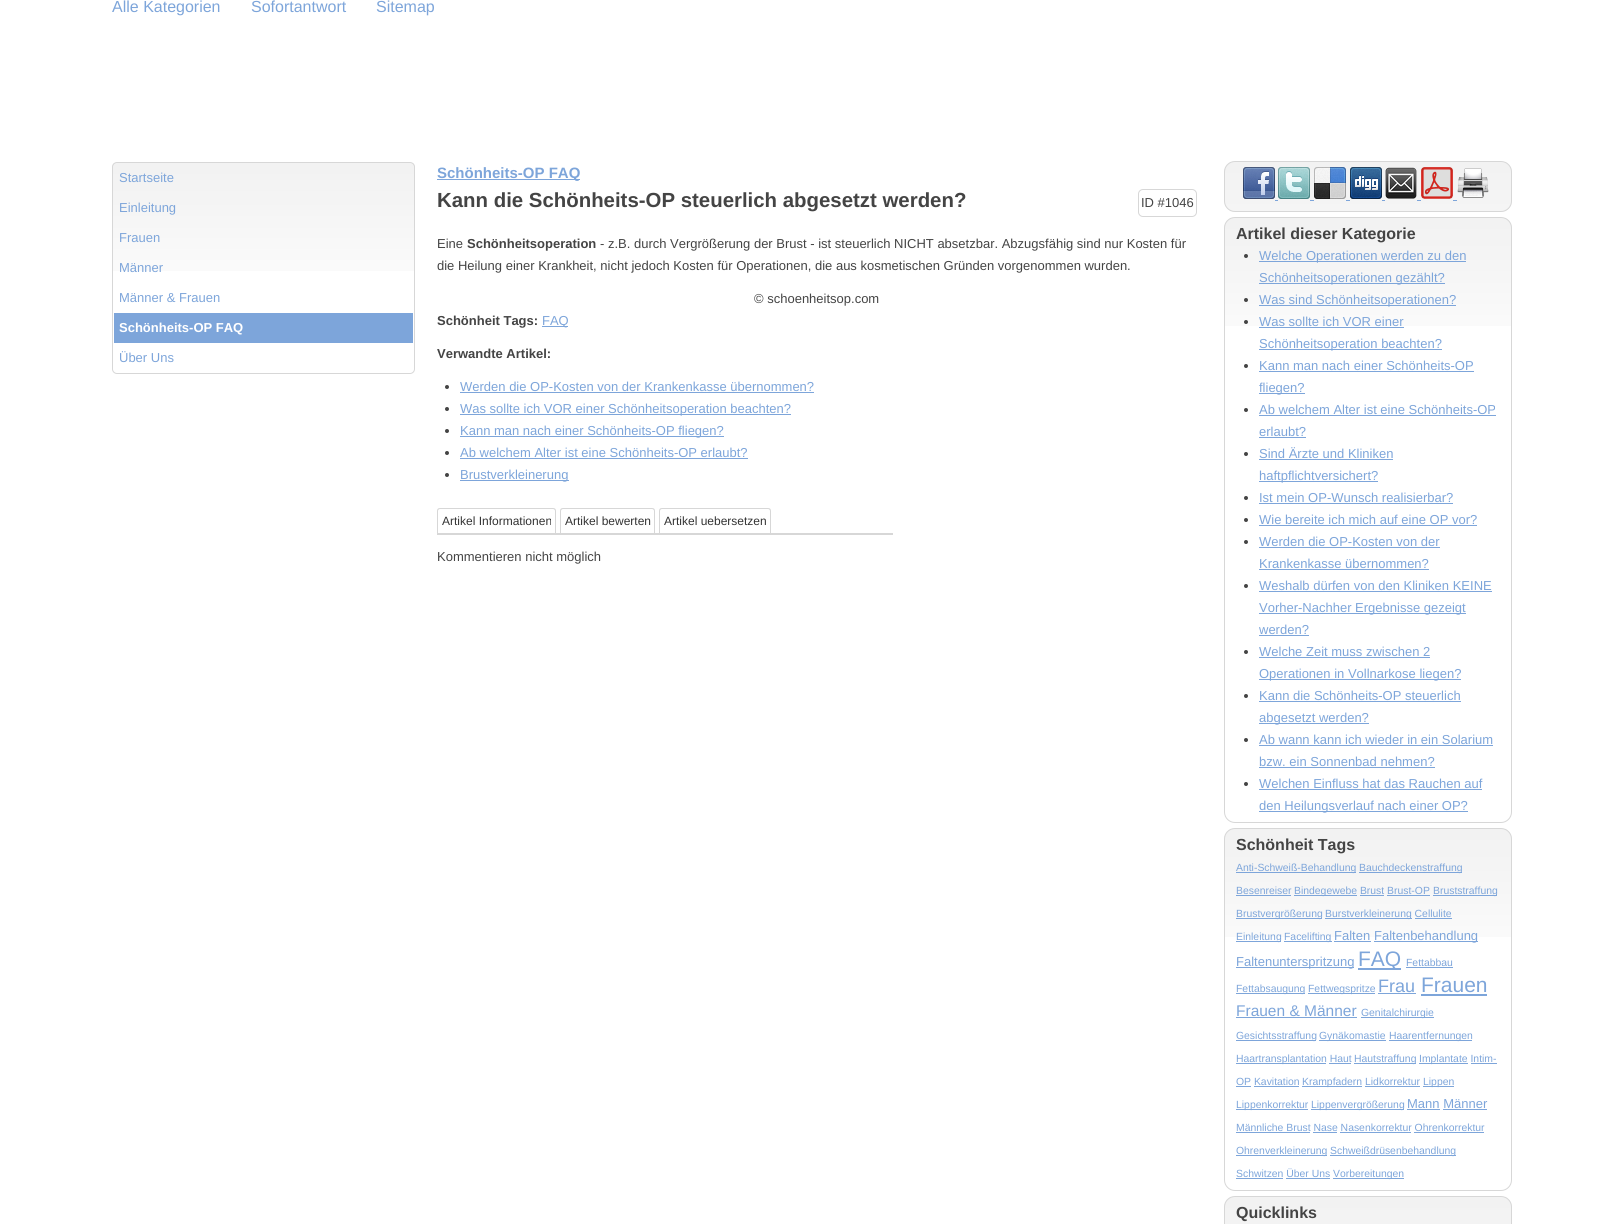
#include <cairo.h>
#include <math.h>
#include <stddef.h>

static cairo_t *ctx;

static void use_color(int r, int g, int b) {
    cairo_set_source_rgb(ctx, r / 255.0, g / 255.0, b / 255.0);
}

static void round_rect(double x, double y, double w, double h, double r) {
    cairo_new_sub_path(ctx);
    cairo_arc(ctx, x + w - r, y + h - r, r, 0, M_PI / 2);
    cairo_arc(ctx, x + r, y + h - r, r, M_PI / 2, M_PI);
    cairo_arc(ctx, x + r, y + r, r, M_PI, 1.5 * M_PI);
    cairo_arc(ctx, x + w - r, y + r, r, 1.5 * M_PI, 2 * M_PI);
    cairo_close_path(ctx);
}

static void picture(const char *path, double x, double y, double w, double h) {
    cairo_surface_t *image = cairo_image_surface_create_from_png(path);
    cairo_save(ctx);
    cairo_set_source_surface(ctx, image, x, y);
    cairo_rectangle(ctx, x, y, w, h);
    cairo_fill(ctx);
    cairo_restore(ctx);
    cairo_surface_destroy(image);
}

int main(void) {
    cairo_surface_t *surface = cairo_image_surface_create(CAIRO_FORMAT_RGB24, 1624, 1224);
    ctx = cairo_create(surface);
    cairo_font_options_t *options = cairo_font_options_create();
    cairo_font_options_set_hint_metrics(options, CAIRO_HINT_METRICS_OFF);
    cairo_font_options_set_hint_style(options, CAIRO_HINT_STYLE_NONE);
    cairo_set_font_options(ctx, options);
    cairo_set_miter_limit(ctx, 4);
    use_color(255, 255, 255);
    cairo_paint(ctx);
    cairo_select_font_face(ctx, "Liberation Sans", CAIRO_FONT_SLANT_NORMAL, CAIRO_FONT_WEIGHT_NORMAL);
    cairo_set_font_size(ctx, 16);
    use_color(125, 165, 218);
    cairo_move_to(ctx, 112, 12);
    cairo_show_text(ctx, "Alle Kategorien");
    cairo_move_to(ctx, 251, 12);
    cairo_show_text(ctx, "Sofortantwort");
    cairo_move_to(ctx, 376, 12);
    cairo_show_text(ctx, "Sitemap");
    picture("img1.png", 112, 163, 303, 108);
    round_rect(112.5, 162.5, 302, 211, 4.5);
    use_color(215, 215, 215);
    cairo_set_line_width(ctx, 1);
    cairo_stroke(ctx);
    cairo_set_font_size(ctx, 13);
    use_color(125, 165, 218);
    cairo_move_to(ctx, 119, 182);
    cairo_show_text(ctx, "Startseite");
    cairo_move_to(ctx, 119, 212);
    cairo_show_text(ctx, "Einleitung");
    cairo_move_to(ctx, 119, 242);
    cairo_show_text(ctx, "Frauen");
    cairo_move_to(ctx, 119, 272);
    cairo_show_text(ctx, "Männer");
    cairo_move_to(ctx, 119, 302);
    cairo_show_text(ctx, "Männer & Frauen");
    cairo_rectangle(ctx, 114, 313, 299, 30);
    cairo_fill(ctx);
    cairo_select_font_face(ctx, "Liberation Sans", CAIRO_FONT_SLANT_NORMAL, CAIRO_FONT_WEIGHT_BOLD);
    use_color(255, 255, 255);
    cairo_move_to(ctx, 119, 332);
    cairo_show_text(ctx, "Schönheits-OP FAQ");
    cairo_select_font_face(ctx, "Liberation Sans", CAIRO_FONT_SLANT_NORMAL, CAIRO_FONT_WEIGHT_NORMAL);
    use_color(125, 165, 218);
    cairo_move_to(ctx, 119, 362);
    cairo_show_text(ctx, "Über Uns");
    cairo_rectangle(ctx, 437, 179, 143, 1);
    cairo_fill(ctx);
    cairo_select_font_face(ctx, "Liberation Sans", CAIRO_FONT_SLANT_NORMAL, CAIRO_FONT_WEIGHT_BOLD);
    cairo_set_font_size(ctx, 15);
    cairo_move_to(ctx, 437, 178);
    cairo_show_text(ctx, "Schönheits-OP FAQ");
    cairo_set_font_size(ctx, 20.4);
    use_color(68, 68, 68);
    cairo_move_to(ctx, 437, 207);
    cairo_show_text(ctx, "Kann die Schönheits-OP steuerlich abgesetzt werden?");
    round_rect(1138.5, 189.5, 58, 27, 4.5);
    use_color(215, 215, 215);
    cairo_stroke(ctx);
    cairo_select_font_face(ctx, "Liberation Sans", CAIRO_FONT_SLANT_NORMAL, CAIRO_FONT_WEIGHT_NORMAL);
    cairo_set_font_size(ctx, 13);
    use_color(68, 68, 68);
    cairo_move_to(ctx, 1141, 207);
    cairo_show_text(ctx, "ID #1046");
    cairo_move_to(ctx, 437, 248);
    cairo_show_text(ctx, "Eine");
    cairo_select_font_face(ctx, "Liberation Sans", CAIRO_FONT_SLANT_NORMAL, CAIRO_FONT_WEIGHT_BOLD);
    cairo_move_to(ctx, 467, 248);
    cairo_show_text(ctx, "Schönheitsoperation");
    cairo_select_font_face(ctx, "Liberation Sans", CAIRO_FONT_SLANT_NORMAL, CAIRO_FONT_WEIGHT_NORMAL);
    cairo_move_to(ctx, 600, 248);
    cairo_show_text(ctx, "- z.B. durch Vergrößerung der Brust - ist steuerlich NICHT absetzbar. Abzugsfähig sind nur Kosten für");
    cairo_move_to(ctx, 437, 270);
    cairo_show_text(ctx, "die Heilung einer Krankheit, nicht jedoch Kosten für Operationen, die aus kosmetischen Gründen vorgenommen wurden.");
    cairo_move_to(ctx, 754, 303);
    cairo_show_text(ctx, "© schoenheitsop.com");
    cairo_select_font_face(ctx, "Liberation Sans", CAIRO_FONT_SLANT_NORMAL, CAIRO_FONT_WEIGHT_BOLD);
    cairo_move_to(ctx, 437, 325);
    cairo_show_text(ctx, "Schönheit Tags:");
    use_color(125, 165, 218);
    cairo_rectangle(ctx, 542, 326, 26, 1);
    cairo_fill(ctx);
    cairo_select_font_face(ctx, "Liberation Sans", CAIRO_FONT_SLANT_NORMAL, CAIRO_FONT_WEIGHT_NORMAL);
    cairo_move_to(ctx, 542, 325);
    cairo_show_text(ctx, "FAQ");
    cairo_select_font_face(ctx, "Liberation Sans", CAIRO_FONT_SLANT_NORMAL, CAIRO_FONT_WEIGHT_BOLD);
    use_color(68, 68, 68);
    cairo_move_to(ctx, 437, 358);
    cairo_show_text(ctx, "Verwandte Artikel:");
    cairo_new_path(ctx);
    cairo_arc(ctx, 447, 387, 2, 0, 2 * M_PI);
    cairo_fill(ctx);
    cairo_select_font_face(ctx, "Liberation Sans", CAIRO_FONT_SLANT_NORMAL, CAIRO_FONT_WEIGHT_NORMAL);
    use_color(125, 165, 218);
    cairo_move_to(ctx, 460, 391);
    cairo_show_text(ctx, "Werden die OP-Kosten von der Krankenkasse übernommen?");
    cairo_rectangle(ctx, 460, 392, 354, 1);
    cairo_fill(ctx);
    use_color(68, 68, 68);
    cairo_arc(ctx, 447, 409, 2, 0, 2 * M_PI);
    cairo_fill(ctx);
    use_color(125, 165, 218);
    cairo_rectangle(ctx, 460, 414, 331, 1);
    cairo_fill(ctx);
    cairo_move_to(ctx, 460, 413);
    cairo_show_text(ctx, "Was sollte ich VOR einer Schönheitsoperation beachten?");
    use_color(68, 68, 68);
    cairo_new_path(ctx);
    cairo_arc(ctx, 447, 431, 2, 0, 2 * M_PI);
    cairo_fill(ctx);
    use_color(125, 165, 218);
    cairo_rectangle(ctx, 460, 436, 264, 1);
    cairo_fill(ctx);
    cairo_move_to(ctx, 460, 435);
    cairo_show_text(ctx, "Kann man nach einer Schönheits-OP fliegen?");
    use_color(68, 68, 68);
    cairo_new_path(ctx);
    cairo_arc(ctx, 447, 453, 2, 0, 2 * M_PI);
    cairo_fill(ctx);
    use_color(125, 165, 218);
    cairo_move_to(ctx, 460, 457);
    cairo_show_text(ctx, "Ab welchem Alter ist eine Schönheits-OP erlaubt?");
    cairo_rectangle(ctx, 460, 458, 288, 1);
    cairo_fill(ctx);
    use_color(68, 68, 68);
    cairo_arc(ctx, 447, 475, 2, 0, 2 * M_PI);
    cairo_fill(ctx);
    use_color(125, 165, 218);
    cairo_rectangle(ctx, 460, 480, 109, 1);
    cairo_fill(ctx);
    cairo_move_to(ctx, 460, 479);
    cairo_show_text(ctx, "Brustverkleinerung");
    use_color(215, 215, 215);
    cairo_rectangle(ctx, 437, 533, 456, 2);
    cairo_fill(ctx);
    cairo_set_fill_rule(ctx, CAIRO_FILL_RULE_EVEN_ODD);
    cairo_new_path(ctx);
    cairo_move_to(ctx, 440, 508);
    cairo_line_to(ctx, 553, 508);
    cairo_curve_to(ctx, 555, 508, 556, 509, 556, 511);
    cairo_line_to(ctx, 556, 533);
    cairo_line_to(ctx, 437, 533);
    cairo_line_to(ctx, 437, 511);
    cairo_curve_to(ctx, 437, 509, 438, 508, 440, 508);
    cairo_close_path(ctx);
    cairo_move_to(ctx, 440, 509);
    cairo_line_to(ctx, 553, 509);
    cairo_curve_to(ctx, 554, 509, 555, 510, 555, 511);
    cairo_line_to(ctx, 555, 533);
    cairo_line_to(ctx, 438, 533);
    cairo_line_to(ctx, 438, 511);
    cairo_curve_to(ctx, 438, 510, 439, 509, 440, 509);
    cairo_close_path(ctx);
    cairo_fill(ctx);
    cairo_set_font_size(ctx, 12);
    use_color(51, 51, 51);
    cairo_move_to(ctx, 442, 525);
    cairo_show_text(ctx, "Artikel Informationen");
    use_color(215, 215, 215);
    cairo_new_path(ctx);
    cairo_move_to(ctx, 563, 508);
    cairo_line_to(ctx, 652, 508);
    cairo_curve_to(ctx, 654, 508, 655, 509, 655, 511);
    cairo_line_to(ctx, 655, 533);
    cairo_line_to(ctx, 560, 533);
    cairo_line_to(ctx, 560, 511);
    cairo_curve_to(ctx, 560, 509, 561, 508, 563, 508);
    cairo_close_path(ctx);
    cairo_move_to(ctx, 563, 509);
    cairo_line_to(ctx, 652, 509);
    cairo_curve_to(ctx, 653, 509, 654, 510, 654, 511);
    cairo_line_to(ctx, 654, 533);
    cairo_line_to(ctx, 561, 533);
    cairo_line_to(ctx, 561, 511);
    cairo_curve_to(ctx, 561, 510, 562, 509, 563, 509);
    cairo_close_path(ctx);
    cairo_fill(ctx);
    use_color(51, 51, 51);
    cairo_move_to(ctx, 565, 525);
    cairo_show_text(ctx, "Artikel bewerten");
    use_color(215, 215, 215);
    cairo_new_path(ctx);
    cairo_move_to(ctx, 662, 508);
    cairo_line_to(ctx, 768, 508);
    cairo_curve_to(ctx, 770, 508, 771, 509, 771, 511);
    cairo_line_to(ctx, 771, 533);
    cairo_line_to(ctx, 659, 533);
    cairo_line_to(ctx, 659, 511);
    cairo_curve_to(ctx, 659, 509, 660, 508, 662, 508);
    cairo_close_path(ctx);
    cairo_move_to(ctx, 662, 509);
    cairo_line_to(ctx, 768, 509);
    cairo_curve_to(ctx, 769, 509, 770, 510, 770, 511);
    cairo_line_to(ctx, 770, 533);
    cairo_line_to(ctx, 660, 533);
    cairo_line_to(ctx, 660, 511);
    cairo_curve_to(ctx, 660, 510, 661, 509, 662, 509);
    cairo_close_path(ctx);
    cairo_fill(ctx);
    use_color(51, 51, 51);
    cairo_move_to(ctx, 664, 525);
    cairo_show_text(ctx, "Artikel uebersetzen");
    cairo_set_font_size(ctx, 13);
    use_color(68, 68, 68);
    cairo_move_to(ctx, 437, 561);
    cairo_show_text(ctx, "Kommentieren nicht möglich");
    picture("img2.png", 1224, 162, 288, 50);
    round_rect(1224.5, 161.5, 287, 50, 10.5);
    use_color(215, 215, 215);
    cairo_stroke(ctx);
    picture("img3.png", 1243, 167, 32, 32);
    picture("img4.png", 1278, 167, 32, 32);
    picture("img5.png", 1314, 167, 32, 32);
    picture("img6.png", 1350, 167, 32, 32);
    picture("img7.png", 1385, 167, 32, 32);
    picture("img8.png", 1421, 167, 32, 32);
    picture("img9.png", 1457, 168, 32, 30);
    use_color(125, 165, 218);
    cairo_rectangle(ctx, 1275, 200, 3, 1);
    cairo_fill(ctx);
    cairo_rectangle(ctx, 1310, 200, 4, 1);
    cairo_fill(ctx);
    cairo_rectangle(ctx, 1346, 200, 4, 1);
    cairo_fill(ctx);
    cairo_rectangle(ctx, 1382, 200, 3, 1);
    cairo_fill(ctx);
    cairo_rectangle(ctx, 1417, 200, 4, 1);
    cairo_fill(ctx);
    cairo_rectangle(ctx, 1453, 200, 4, 1);
    cairo_fill(ctx);
    picture("img10.png", 1224, 218, 288, 108);
    round_rect(1224.5, 217.5, 287, 605, 10.5);
    use_color(215, 215, 215);
    cairo_stroke(ctx);
    cairo_select_font_face(ctx, "Liberation Sans", CAIRO_FONT_SLANT_NORMAL, CAIRO_FONT_WEIGHT_BOLD);
    cairo_set_font_size(ctx, 16);
    use_color(68, 68, 68);
    cairo_move_to(ctx, 1236, 239);
    cairo_show_text(ctx, "Artikel dieser Kategorie");
    cairo_new_path(ctx);
    cairo_arc(ctx, 1246, 256, 2, 0, 2 * M_PI);
    cairo_fill(ctx);
    use_color(125, 165, 218);
    cairo_rectangle(ctx, 1259, 261, 207, 1);
    cairo_fill(ctx);
    cairo_select_font_face(ctx, "Liberation Sans", CAIRO_FONT_SLANT_NORMAL, CAIRO_FONT_WEIGHT_NORMAL);
    cairo_set_font_size(ctx, 13);
    cairo_move_to(ctx, 1259, 260);
    cairo_show_text(ctx, "Welche Operationen werden zu den");
    cairo_rectangle(ctx, 1259, 283, 186, 1);
    cairo_fill(ctx);
    cairo_move_to(ctx, 1259, 282);
    cairo_show_text(ctx, "Schönheitsoperationen gezählt?");
    use_color(68, 68, 68);
    cairo_new_path(ctx);
    cairo_arc(ctx, 1246, 300, 2, 0, 2 * M_PI);
    cairo_fill(ctx);
    use_color(125, 165, 218);
    cairo_rectangle(ctx, 1259, 305, 197, 1);
    cairo_fill(ctx);
    cairo_move_to(ctx, 1259, 304);
    cairo_show_text(ctx, "Was sind Schönheitsoperationen?");
    use_color(68, 68, 68);
    cairo_new_path(ctx);
    cairo_arc(ctx, 1246, 322, 2, 0, 2 * M_PI);
    cairo_fill(ctx);
    use_color(125, 165, 218);
    cairo_move_to(ctx, 1259, 326);
    cairo_show_text(ctx, "Was sollte ich VOR einer");
    cairo_rectangle(ctx, 1259, 327, 145, 1);
    cairo_fill(ctx);
    cairo_rectangle(ctx, 1259, 349, 183, 1);
    cairo_fill(ctx);
    cairo_move_to(ctx, 1259, 348);
    cairo_show_text(ctx, "Schönheitsoperation beachten?");
    use_color(68, 68, 68);
    cairo_new_path(ctx);
    cairo_arc(ctx, 1246, 366, 2, 0, 2 * M_PI);
    cairo_fill(ctx);
    use_color(125, 165, 218);
    cairo_move_to(ctx, 1259, 370);
    cairo_show_text(ctx, "Kann man nach einer Schönheits-OP");
    cairo_rectangle(ctx, 1259, 371, 215, 1);
    cairo_fill(ctx);
    cairo_rectangle(ctx, 1259, 393, 46, 1);
    cairo_fill(ctx);
    cairo_move_to(ctx, 1259, 392);
    cairo_show_text(ctx, "fliegen?");
    use_color(68, 68, 68);
    cairo_new_path(ctx);
    cairo_arc(ctx, 1246, 410, 2, 0, 2 * M_PI);
    cairo_fill(ctx);
    use_color(125, 165, 218);
    cairo_move_to(ctx, 1259, 414);
    cairo_show_text(ctx, "Ab welchem Alter ist eine Schönheits-OP");
    cairo_rectangle(ctx, 1259, 415, 237, 1);
    cairo_fill(ctx);
    cairo_move_to(ctx, 1259, 436);
    cairo_show_text(ctx, "erlaubt?");
    cairo_rectangle(ctx, 1259, 437, 47, 1);
    cairo_fill(ctx);
    use_color(68, 68, 68);
    cairo_arc(ctx, 1246, 454, 2, 0, 2 * M_PI);
    cairo_fill(ctx);
    use_color(125, 165, 218);
    cairo_move_to(ctx, 1259, 458);
    cairo_show_text(ctx, "Sind Ärzte und Kliniken");
    cairo_rectangle(ctx, 1259, 459, 134, 1);
    cairo_fill(ctx);
    cairo_rectangle(ctx, 1259, 481, 119, 1);
    cairo_fill(ctx);
    cairo_move_to(ctx, 1259, 480);
    cairo_show_text(ctx, "haftpflichtversichert?");
    use_color(68, 68, 68);
    cairo_new_path(ctx);
    cairo_arc(ctx, 1246, 498, 2, 0, 2 * M_PI);
    cairo_fill(ctx);
    use_color(125, 165, 218);
    cairo_move_to(ctx, 1259, 502);
    cairo_show_text(ctx, "Ist mein OP-Wunsch realisierbar?");
    cairo_rectangle(ctx, 1259, 503, 194, 1);
    cairo_fill(ctx);
    use_color(68, 68, 68);
    cairo_arc(ctx, 1246, 520, 2, 0, 2 * M_PI);
    cairo_fill(ctx);
    use_color(125, 165, 218);
    cairo_move_to(ctx, 1259, 524);
    cairo_show_text(ctx, "Wie bereite ich mich auf eine OP vor?");
    cairo_rectangle(ctx, 1259, 525, 218, 1);
    cairo_fill(ctx);
    use_color(68, 68, 68);
    cairo_arc(ctx, 1246, 542, 2, 0, 2 * M_PI);
    cairo_fill(ctx);
    use_color(125, 165, 218);
    cairo_move_to(ctx, 1259, 546);
    cairo_show_text(ctx, "Werden die OP-Kosten von der");
    cairo_rectangle(ctx, 1259, 547, 181, 1);
    cairo_fill(ctx);
    cairo_move_to(ctx, 1259, 568);
    cairo_show_text(ctx, "Krankenkasse übernommen?");
    cairo_rectangle(ctx, 1259, 569, 170, 1);
    cairo_fill(ctx);
    use_color(68, 68, 68);
    cairo_arc(ctx, 1246, 586, 2, 0, 2 * M_PI);
    cairo_fill(ctx);
    use_color(125, 165, 218);
    cairo_move_to(ctx, 1259, 590);
    cairo_show_text(ctx, "Weshalb dürfen von den Kliniken KEINE");
    cairo_rectangle(ctx, 1259, 591, 233, 1);
    cairo_fill(ctx);
    cairo_rectangle(ctx, 1259, 613, 207, 1);
    cairo_fill(ctx);
    cairo_move_to(ctx, 1259, 612);
    cairo_show_text(ctx, "Vorher-Nachher Ergebnisse gezeigt");
    cairo_move_to(ctx, 1259, 634);
    cairo_show_text(ctx, "werden?");
    cairo_rectangle(ctx, 1259, 635, 50, 1);
    cairo_fill(ctx);
    use_color(68, 68, 68);
    cairo_arc(ctx, 1246, 652, 2, 0, 2 * M_PI);
    cairo_fill(ctx);
    use_color(125, 165, 218);
    cairo_move_to(ctx, 1259, 656);
    cairo_show_text(ctx, "Welche Zeit muss zwischen 2");
    cairo_rectangle(ctx, 1259, 657, 171, 1);
    cairo_fill(ctx);
    cairo_rectangle(ctx, 1259, 679, 202, 1);
    cairo_fill(ctx);
    cairo_move_to(ctx, 1259, 678);
    cairo_show_text(ctx, "Operationen in Vollnarkose liegen?");
    use_color(68, 68, 68);
    cairo_new_path(ctx);
    cairo_arc(ctx, 1246, 696, 2, 0, 2 * M_PI);
    cairo_fill(ctx);
    use_color(125, 165, 218);
    cairo_move_to(ctx, 1259, 700);
    cairo_show_text(ctx, "Kann die Schönheits-OP steuerlich");
    cairo_rectangle(ctx, 1259, 701, 202, 1);
    cairo_fill(ctx);
    cairo_rectangle(ctx, 1259, 723, 110, 1);
    cairo_fill(ctx);
    cairo_move_to(ctx, 1259, 722);
    cairo_show_text(ctx, "abgesetzt werden?");
    use_color(68, 68, 68);
    cairo_new_path(ctx);
    cairo_arc(ctx, 1246, 740, 2, 0, 2 * M_PI);
    cairo_fill(ctx);
    use_color(125, 165, 218);
    cairo_move_to(ctx, 1259, 744);
    cairo_show_text(ctx, "Ab wann kann ich wieder in ein Solarium");
    cairo_rectangle(ctx, 1259, 745, 234, 1);
    cairo_fill(ctx);
    cairo_move_to(ctx, 1259, 766);
    cairo_show_text(ctx, "bzw. ein Sonnenbad nehmen?");
    cairo_rectangle(ctx, 1259, 767, 176, 1);
    cairo_fill(ctx);
    use_color(68, 68, 68);
    cairo_arc(ctx, 1246, 784, 2, 0, 2 * M_PI);
    cairo_fill(ctx);
    use_color(125, 165, 218);
    cairo_move_to(ctx, 1259, 788);
    cairo_show_text(ctx, "Welchen Einfluss hat das Rauchen auf");
    cairo_rectangle(ctx, 1259, 789, 223, 1);
    cairo_fill(ctx);
    cairo_rectangle(ctx, 1259, 811, 209, 1);
    cairo_fill(ctx);
    cairo_move_to(ctx, 1259, 810);
    cairo_show_text(ctx, "den Heilungsverlauf nach einer OP?");
    picture("img10.png", 1224, 829, 288, 108);
    round_rect(1224.5, 828.5, 287, 362, 10.5);
    use_color(215, 215, 215);
    cairo_stroke(ctx);
    cairo_select_font_face(ctx, "Liberation Sans", CAIRO_FONT_SLANT_NORMAL, CAIRO_FONT_WEIGHT_BOLD);
    cairo_set_font_size(ctx, 16);
    use_color(68, 68, 68);
    cairo_move_to(ctx, 1236, 850);
    cairo_show_text(ctx, "Schönheit Tags");
    use_color(125, 165, 218);
    cairo_rectangle(ctx, 1236, 872, 120, 1);
    cairo_fill(ctx);
    cairo_select_font_face(ctx, "Liberation Sans", CAIRO_FONT_SLANT_NORMAL, CAIRO_FONT_WEIGHT_NORMAL);
    cairo_set_font_size(ctx, 10.4);
    cairo_move_to(ctx, 1236, 871);
    cairo_show_text(ctx, "Anti-Schweiß-Behandlung");
    cairo_rectangle(ctx, 1359, 872, 103, 1);
    cairo_fill(ctx);
    cairo_move_to(ctx, 1359, 871);
    cairo_show_text(ctx, "Bauchdeckenstraffung");
    cairo_move_to(ctx, 1236, 894);
    cairo_show_text(ctx, "Besenreiser");
    cairo_rectangle(ctx, 1236, 895, 55, 1);
    cairo_fill(ctx);
    cairo_rectangle(ctx, 1294, 895, 63, 1);
    cairo_fill(ctx);
    cairo_move_to(ctx, 1294, 894);
    cairo_show_text(ctx, "Bindegewebe Brust Brust-OP");
    cairo_rectangle(ctx, 1433, 895, 64, 1);
    cairo_fill(ctx);
    cairo_move_to(ctx, 1433, 894);
    cairo_show_text(ctx, "Bruststraffung");
    cairo_rectangle(ctx, 1360, 895, 24, 1);
    cairo_fill(ctx);
    cairo_rectangle(ctx, 1387, 895, 43, 1);
    cairo_fill(ctx);
    cairo_rectangle(ctx, 1236, 918, 86, 1);
    cairo_fill(ctx);
    cairo_move_to(ctx, 1236, 917);
    cairo_show_text(ctx, "Brustvergrößerung");
    cairo_rectangle(ctx, 1325, 918, 87, 1);
    cairo_fill(ctx);
    cairo_move_to(ctx, 1325, 917);
    cairo_show_text(ctx, "Burstverkleinerung Cellulite");
    cairo_rectangle(ctx, 1415, 918, 37, 1);
    cairo_fill(ctx);
    cairo_rectangle(ctx, 1236, 941, 45, 1);
    cairo_fill(ctx);
    cairo_move_to(ctx, 1236, 940);
    cairo_show_text(ctx, "Einleitung");
    cairo_rectangle(ctx, 1284, 941, 48, 1);
    cairo_fill(ctx);
    cairo_move_to(ctx, 1284, 940);
    cairo_show_text(ctx, "Facelifting");
    cairo_set_font_size(ctx, 13);
    cairo_move_to(ctx, 1334, 940);
    cairo_show_text(ctx, "Falten");
    cairo_rectangle(ctx, 1334, 941, 37, 1);
    cairo_fill(ctx);
    cairo_rectangle(ctx, 1374, 941, 104, 1);
    cairo_fill(ctx);
    cairo_move_to(ctx, 1374, 940);
    cairo_show_text(ctx, "Faltenbehandlung");
    cairo_rectangle(ctx, 1236, 967, 118, 1);
    cairo_fill(ctx);
    cairo_move_to(ctx, 1236, 966);
    cairo_show_text(ctx, "Faltenunterspritzung");
    cairo_rectangle(ctx, 1358, 968, 43, 2);
    cairo_fill(ctx);
    cairo_set_font_size(ctx, 21);
    cairo_move_to(ctx, 1358, 966);
    cairo_show_text(ctx, "FAQ");
    cairo_set_font_size(ctx, 10.4);
    cairo_move_to(ctx, 1406, 966);
    cairo_show_text(ctx, "Fettabbau");
    cairo_rectangle(ctx, 1406, 967, 47, 1);
    cairo_fill(ctx);
    cairo_rectangle(ctx, 1236, 993, 69, 1);
    cairo_fill(ctx);
    cairo_move_to(ctx, 1236, 992);
    cairo_show_text(ctx, "Fettabsaugung");
    cairo_rectangle(ctx, 1308, 993, 67, 1);
    cairo_fill(ctx);
    cairo_move_to(ctx, 1308, 992);
    cairo_show_text(ctx, "Fettwegspritze");
    cairo_set_font_size(ctx, 18);
    cairo_move_to(ctx, 1378, 992);
    cairo_show_text(ctx, "Frau");
    cairo_rectangle(ctx, 1378, 993, 38, 1);
    cairo_fill(ctx);
    cairo_set_font_size(ctx, 21);
    cairo_move_to(ctx, 1421, 992);
    cairo_show_text(ctx, "Frauen");
    cairo_rectangle(ctx, 1421, 994, 66, 2);
    cairo_fill(ctx);
    cairo_set_font_size(ctx, 15.5);
    cairo_move_to(ctx, 1236, 1016);
    cairo_show_text(ctx, "Frauen & Männer");
    cairo_rectangle(ctx, 1236, 1017, 121, 1);
    cairo_fill(ctx);
    cairo_rectangle(ctx, 1361, 1017, 73, 1);
    cairo_fill(ctx);
    cairo_set_font_size(ctx, 10.4);
    cairo_move_to(ctx, 1361, 1016);
    cairo_show_text(ctx, "Genitalchirurgie");
    cairo_rectangle(ctx, 1236, 1040, 80, 1);
    cairo_fill(ctx);
    cairo_move_to(ctx, 1236, 1039);
    cairo_show_text(ctx, "Gesichtsstraffung");
    cairo_rectangle(ctx, 1319, 1040, 67, 1);
    cairo_fill(ctx);
    cairo_move_to(ctx, 1319, 1039);
    cairo_show_text(ctx, "Gynäkomastie");
    cairo_rectangle(ctx, 1389, 1040, 83, 1);
    cairo_fill(ctx);
    cairo_move_to(ctx, 1389, 1039);
    cairo_show_text(ctx, "Haarentfernungen");
    cairo_rectangle(ctx, 1236, 1063, 90, 1);
    cairo_fill(ctx);
    cairo_move_to(ctx, 1236, 1062);
    cairo_show_text(ctx, "Haartransplantation Haut");
    cairo_rectangle(ctx, 1354, 1063, 62, 1);
    cairo_fill(ctx);
    cairo_move_to(ctx, 1354, 1062);
    cairo_show_text(ctx, "Hautstraffung");
    cairo_rectangle(ctx, 1419, 1063, 49, 1);
    cairo_fill(ctx);
    cairo_move_to(ctx, 1419, 1062);
    cairo_show_text(ctx, "Implantate Intim-");
    cairo_rectangle(ctx, 1329, 1063, 22, 1);
    cairo_fill(ctx);
    cairo_move_to(ctx, 1236, 1085);
    cairo_show_text(ctx, "OP Kavitation");
    cairo_rectangle(ctx, 1471, 1063, 26, 1);
    cairo_fill(ctx);
    cairo_rectangle(ctx, 1236, 1086, 15, 1);
    cairo_fill(ctx);
    cairo_rectangle(ctx, 1302, 1086, 60, 1);
    cairo_fill(ctx);
    cairo_move_to(ctx, 1302, 1085);
    cairo_show_text(ctx, "Krampfadern Lidkorrektur");
    cairo_rectangle(ctx, 1423, 1086, 31, 1);
    cairo_fill(ctx);
    cairo_move_to(ctx, 1423, 1085);
    cairo_show_text(ctx, "Lippen");
    cairo_rectangle(ctx, 1254, 1086, 45, 1);
    cairo_fill(ctx);
    cairo_rectangle(ctx, 1365, 1086, 55, 1);
    cairo_fill(ctx);
    cairo_rectangle(ctx, 1236, 1109, 72, 1);
    cairo_fill(ctx);
    cairo_move_to(ctx, 1236, 1108);
    cairo_show_text(ctx, "Lippenkorrektur");
    cairo_rectangle(ctx, 1311, 1109, 93, 1);
    cairo_fill(ctx);
    cairo_move_to(ctx, 1311, 1108);
    cairo_show_text(ctx, "Lippenvergrößerung");
    cairo_set_font_size(ctx, 13);
    cairo_move_to(ctx, 1407, 1108);
    cairo_show_text(ctx, "Mann Männer");
    cairo_rectangle(ctx, 1407, 1109, 33, 1);
    cairo_fill(ctx);
    cairo_rectangle(ctx, 1443, 1109, 44, 1);
    cairo_fill(ctx);
    cairo_set_font_size(ctx, 10.4);
    cairo_move_to(ctx, 1236, 1131);
    cairo_show_text(ctx, "Männliche Brust Nase Nasenkorrektur Ohrenkorrektur");
    cairo_rectangle(ctx, 1236, 1132, 74, 1);
    cairo_fill(ctx);
    cairo_rectangle(ctx, 1313, 1132, 24, 1);
    cairo_fill(ctx);
    cairo_rectangle(ctx, 1340, 1132, 71, 1);
    cairo_fill(ctx);
    cairo_rectangle(ctx, 1414, 1132, 70, 1);
    cairo_fill(ctx);
    cairo_rectangle(ctx, 1236, 1155, 91, 1);
    cairo_fill(ctx);
    cairo_move_to(ctx, 1236, 1154);
    cairo_show_text(ctx, "Ohrenverkleinerung");
    cairo_rectangle(ctx, 1330, 1155, 126, 1);
    cairo_fill(ctx);
    cairo_move_to(ctx, 1330, 1154);
    cairo_show_text(ctx, "Schweißdrüsenbehandlung");
    cairo_move_to(ctx, 1236, 1177);
    cairo_show_text(ctx, "Schwitzen Über Uns");
    cairo_rectangle(ctx, 1236, 1178, 47, 1);
    cairo_fill(ctx);
    cairo_rectangle(ctx, 1333, 1178, 71, 1);
    cairo_fill(ctx);
    cairo_move_to(ctx, 1333, 1177);
    cairo_show_text(ctx, "Vorbereitungen");
    cairo_rectangle(ctx, 1286, 1178, 44, 1);
    cairo_fill(ctx);
    picture("img11.png", 1224, 1197, 288, 27);
    round_rect(1224.5, 1196.5, 287, 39, 10.5);
    use_color(215, 215, 215);
    cairo_stroke(ctx);
    cairo_select_font_face(ctx, "Liberation Sans", CAIRO_FONT_SLANT_NORMAL, CAIRO_FONT_WEIGHT_BOLD);
    cairo_set_font_size(ctx, 16);
    use_color(68, 68, 68);
    cairo_move_to(ctx, 1236, 1218);
    cairo_show_text(ctx, "Quicklinks");
    cairo_surface_write_to_png(surface, "result.png");
    cairo_font_options_destroy(options);
    cairo_destroy(ctx);
    cairo_surface_destroy(surface);
    return 0;
}
